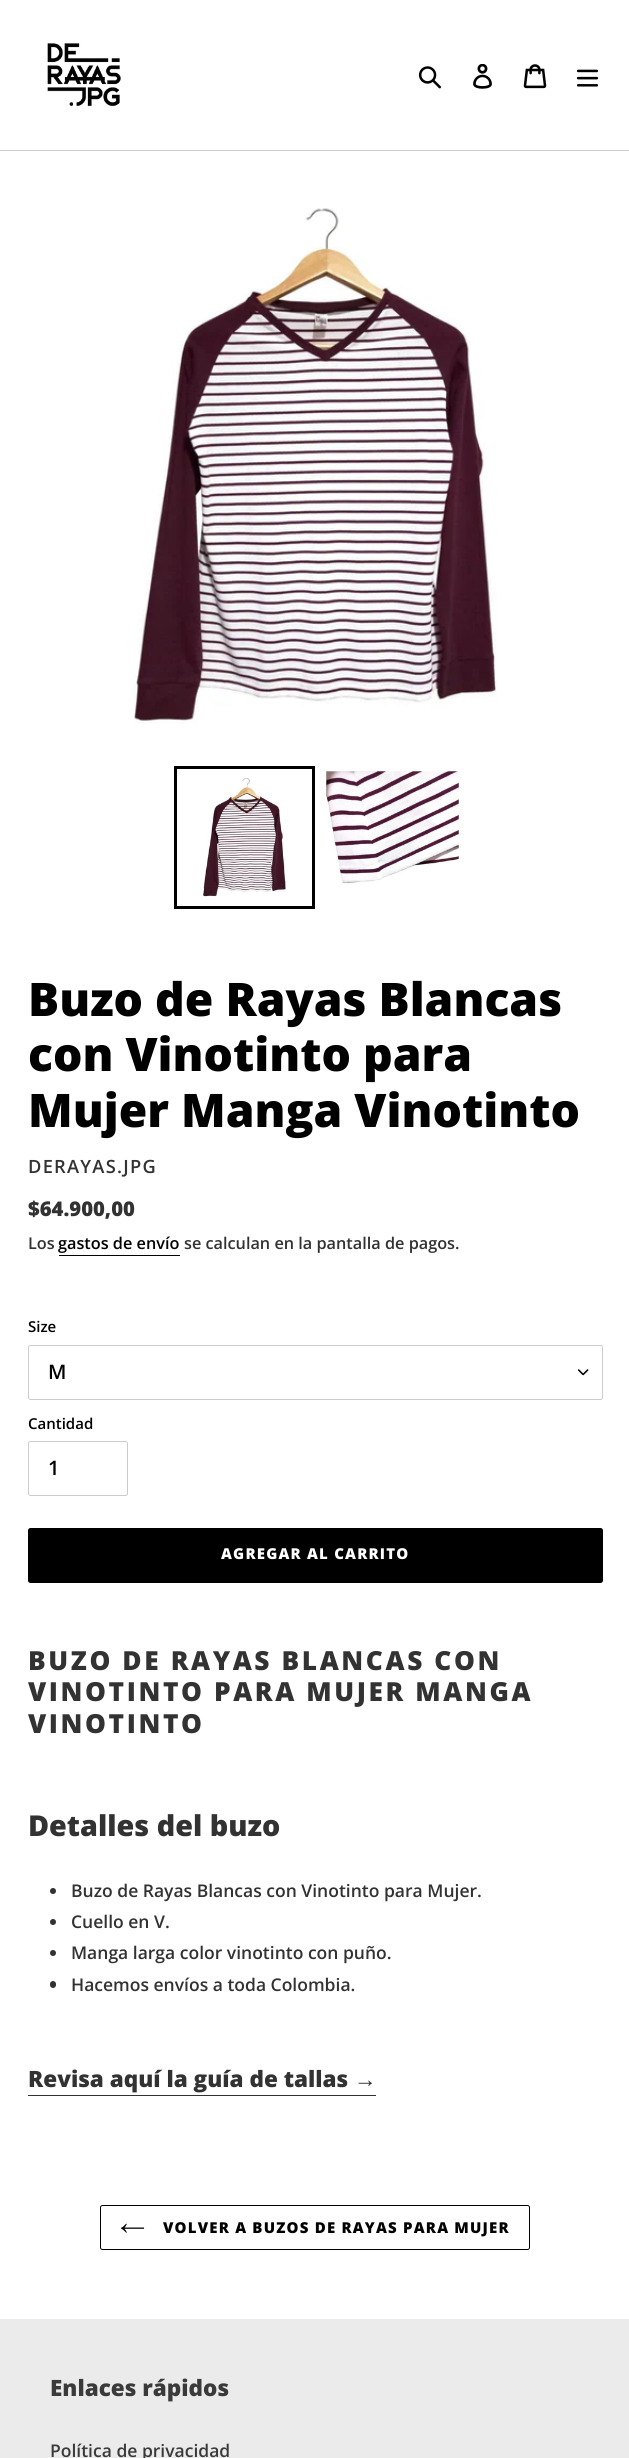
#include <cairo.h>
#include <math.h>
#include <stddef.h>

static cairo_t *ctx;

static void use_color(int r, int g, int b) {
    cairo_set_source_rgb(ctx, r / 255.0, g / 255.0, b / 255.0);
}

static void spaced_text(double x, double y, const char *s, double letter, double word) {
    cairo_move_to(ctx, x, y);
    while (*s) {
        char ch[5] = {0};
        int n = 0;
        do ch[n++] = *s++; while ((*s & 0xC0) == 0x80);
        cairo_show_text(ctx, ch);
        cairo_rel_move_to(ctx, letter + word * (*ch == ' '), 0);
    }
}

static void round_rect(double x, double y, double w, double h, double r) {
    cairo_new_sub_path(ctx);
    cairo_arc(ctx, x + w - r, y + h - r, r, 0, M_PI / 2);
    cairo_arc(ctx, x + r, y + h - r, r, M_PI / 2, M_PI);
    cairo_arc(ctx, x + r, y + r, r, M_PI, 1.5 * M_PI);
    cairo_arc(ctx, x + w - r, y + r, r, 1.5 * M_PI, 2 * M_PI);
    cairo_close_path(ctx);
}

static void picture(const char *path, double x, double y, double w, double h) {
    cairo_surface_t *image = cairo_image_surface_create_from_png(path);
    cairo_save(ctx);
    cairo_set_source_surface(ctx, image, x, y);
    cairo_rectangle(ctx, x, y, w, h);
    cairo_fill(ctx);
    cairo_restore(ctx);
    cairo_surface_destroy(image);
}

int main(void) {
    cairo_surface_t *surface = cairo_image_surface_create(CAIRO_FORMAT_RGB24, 629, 2458);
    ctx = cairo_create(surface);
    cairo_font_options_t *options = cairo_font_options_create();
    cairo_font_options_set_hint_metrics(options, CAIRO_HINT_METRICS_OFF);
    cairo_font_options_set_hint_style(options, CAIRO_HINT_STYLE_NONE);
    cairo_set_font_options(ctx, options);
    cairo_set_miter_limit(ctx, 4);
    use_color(255, 255, 255);
    cairo_paint(ctx);
    use_color(204, 204, 204);
    cairo_rectangle(ctx, 0, 150, 629, 1);
    cairo_fill(ctx);
    picture("img1.png", 47, 43, 74, 64);
    picture("img2.png", 418, 66, 23, 23);
    picture("img3.png", 473, 64, 19, 25);
    picture("img4.png", 523, 64, 24, 25);
    picture("img5.png", 576, 69, 23, 18);
    picture("img6.png", 134, 208, 363, 516);
    cairo_rectangle(ctx, 175.5, 767.5, 138, 140);
    use_color(0, 0, 0);
    cairo_set_line_width(ctx, 3);
    cairo_stroke(ctx);
    picture("img7.png", 203, 778, 83, 119);
    picture("img8.png", 326, 771, 133, 113);
    cairo_select_font_face(ctx, "Open Sans ExtraBold", CAIRO_FONT_SLANT_NORMAL, CAIRO_FONT_WEIGHT_NORMAL);
    cairo_set_font_size(ctx, 46.25);
    cairo_move_to(ctx, 28, 1016);
    cairo_show_text(ctx, "Buzo de Rayas Blancas");
    cairo_move_to(ctx, 28, 1071);
    cairo_show_text(ctx, "con Vinotinto para");
    cairo_move_to(ctx, 28, 1127);
    cairo_show_text(ctx, "Mujer Manga Vinotinto");
    cairo_select_font_face(ctx, "Open Sans SemiBold", CAIRO_FONT_SLANT_NORMAL, CAIRO_FONT_WEIGHT_NORMAL);
    cairo_set_font_size(ctx, 18.25);
    use_color(51, 50, 50);
    spaced_text(28, 1173, "DERAYAS.JPG", 1.25, 0);
    cairo_select_font_face(ctx, "Open Sans ExtraBold", CAIRO_FONT_SLANT_NORMAL, CAIRO_FONT_WEIGHT_NORMAL);
    cairo_set_font_size(ctx, 20.25);
    cairo_move_to(ctx, 28, 1216);
    cairo_show_text(ctx, "$64.900,00");
    cairo_select_font_face(ctx, "Open Sans SemiBold", CAIRO_FONT_SLANT_NORMAL, CAIRO_FONT_WEIGHT_NORMAL);
    cairo_set_font_size(ctx, 16.25);
    cairo_move_to(ctx, 28, 1249);
    cairo_show_text(ctx, "Los");
    use_color(0, 0, 0);
    cairo_move_to(ctx, 58, 1249);
    cairo_show_text(ctx, "gastos de envío");
    cairo_rectangle(ctx, 59, 1255, 121, 1);
    cairo_fill(ctx);
    use_color(51, 50, 50);
    cairo_move_to(ctx, 184, 1249);
    cairo_show_text(ctx, "se calculan en la pantalla de pagos.");
    cairo_set_font_size(ctx, 15);
    use_color(0, 0, 0);
    cairo_move_to(ctx, 28, 1332);
    cairo_show_text(ctx, "Size");
    picture("img9.png", 578, 1369, 11, 7);
    round_rect(28.5, 1345.5, 574, 54, 2);
    use_color(204, 204, 204);
    cairo_set_line_width(ctx, 1);
    cairo_stroke(ctx);
    cairo_set_font_size(ctx, 20);
    use_color(0, 0, 0);
    cairo_move_to(ctx, 48, 1379);
    cairo_show_text(ctx, "M");
    cairo_set_font_size(ctx, 15);
    cairo_move_to(ctx, 28, 1429);
    cairo_show_text(ctx, "Cantidad");
    round_rect(28.5, 1441.5, 99, 54, 2);
    use_color(204, 204, 204);
    cairo_stroke(ctx);
    cairo_set_font_size(ctx, 20);
    use_color(0, 0, 0);
    cairo_move_to(ctx, 48, 1475);
    cairo_show_text(ctx, "1");
    round_rect(28, 1528, 575, 55, 2.5);
    cairo_fill(ctx);
    cairo_select_font_face(ctx, "Open Sans ExtraBold", CAIRO_FONT_SLANT_NORMAL, CAIRO_FONT_WEIGHT_NORMAL);
    cairo_set_font_size(ctx, 15);
    use_color(255, 255, 255);
    spaced_text(221, 1559, "AGREGAR AL CARRITO", 1.2, 0);
    cairo_set_font_size(ctx, 26.25);
    use_color(51, 50, 50);
    spaced_text(28, 1670, "BUZO DE RAYAS BLANCAS CON", 2.6, 0);
    spaced_text(28, 1701, "VINOTINTO PARA MUJER MANGA", 2.6, 0);
    spaced_text(28, 1733, "VINOTINTO", 2.6, 0);
    cairo_set_font_size(ctx, 28.75);
    cairo_move_to(ctx, 28, 1836);
    cairo_show_text(ctx, "Detalles del buzo");
    cairo_new_path(ctx);
    cairo_arc(ctx, 53, 1891, 3, 0, 2 * M_PI);
    cairo_fill(ctx);
    cairo_select_font_face(ctx, "Open Sans SemiBold", CAIRO_FONT_SLANT_NORMAL, CAIRO_FONT_WEIGHT_NORMAL);
    cairo_set_font_size(ctx, 17.5);
    cairo_move_to(ctx, 71, 1897);
    cairo_show_text(ctx, "Buzo de Rayas Blancas con Vinotinto para Mujer.");
    cairo_new_path(ctx);
    cairo_arc(ctx, 53, 1922, 3, 0, 2 * M_PI);
    cairo_fill(ctx);
    cairo_move_to(ctx, 71, 1928);
    cairo_show_text(ctx, "Cuello en V.");
    cairo_new_path(ctx);
    cairo_arc(ctx, 53, 1953, 3, 0, 2 * M_PI);
    cairo_fill(ctx);
    cairo_move_to(ctx, 71, 1959);
    cairo_show_text(ctx, "Manga larga color vinotinto con puño.");
    round_rect(50, 1981, 6, 7, 3);
    cairo_fill(ctx);
    cairo_move_to(ctx, 71, 1991);
    cairo_show_text(ctx, "Hacemos envíos a toda Colombia.");
    cairo_select_font_face(ctx, "Open Sans ExtraBold", CAIRO_FONT_SLANT_NORMAL, CAIRO_FONT_WEIGHT_NORMAL);
    cairo_set_font_size(ctx, 22.5);
    cairo_move_to(ctx, 28, 2087);
    cairo_show_text(ctx, "Revisa aquí la guía de tallas");
    cairo_select_font_face(ctx, "Liberation Sans", CAIRO_FONT_SLANT_NORMAL, CAIRO_FONT_WEIGHT_BOLD);
    cairo_move_to(ctx, 354, 2087);
    cairo_show_text(ctx, "→");
    cairo_rectangle(ctx, 28, 2095, 348, 1);
    cairo_fill(ctx);
    round_rect(100.5, 2205.5, 429, 44, 2);
    use_color(0, 0, 0);
    cairo_stroke(ctx);
    picture("img10.png", 121, 2223, 24, 10);
    cairo_select_font_face(ctx, "Open Sans ExtraBold", CAIRO_FONT_SLANT_NORMAL, CAIRO_FONT_WEIGHT_NORMAL);
    cairo_set_font_size(ctx, 15);
    spaced_text(163, 2233, "VOLVER A BUZOS DE RAYAS PARA MUJER", 1.2, 0);
    use_color(235, 235, 235);
    cairo_rectangle(ctx, 0, 2319, 629, 139);
    cairo_fill(ctx);
    cairo_set_font_size(ctx, 22.5);
    use_color(58, 58, 58);
    cairo_move_to(ctx, 50, 2396);
    cairo_show_text(ctx, "Enlaces rápidos");
    cairo_select_font_face(ctx, "Open Sans SemiBold", CAIRO_FONT_SLANT_NORMAL, CAIRO_FONT_WEIGHT_NORMAL);
    cairo_set_font_size(ctx, 17.5);
    cairo_move_to(ctx, 50, 2457);
    cairo_show_text(ctx, "Política de privacidad");
    cairo_surface_write_to_png(surface, "result.png");
    cairo_font_options_destroy(options);
    cairo_destroy(ctx);
    cairo_surface_destroy(surface);
    return 0;
}
